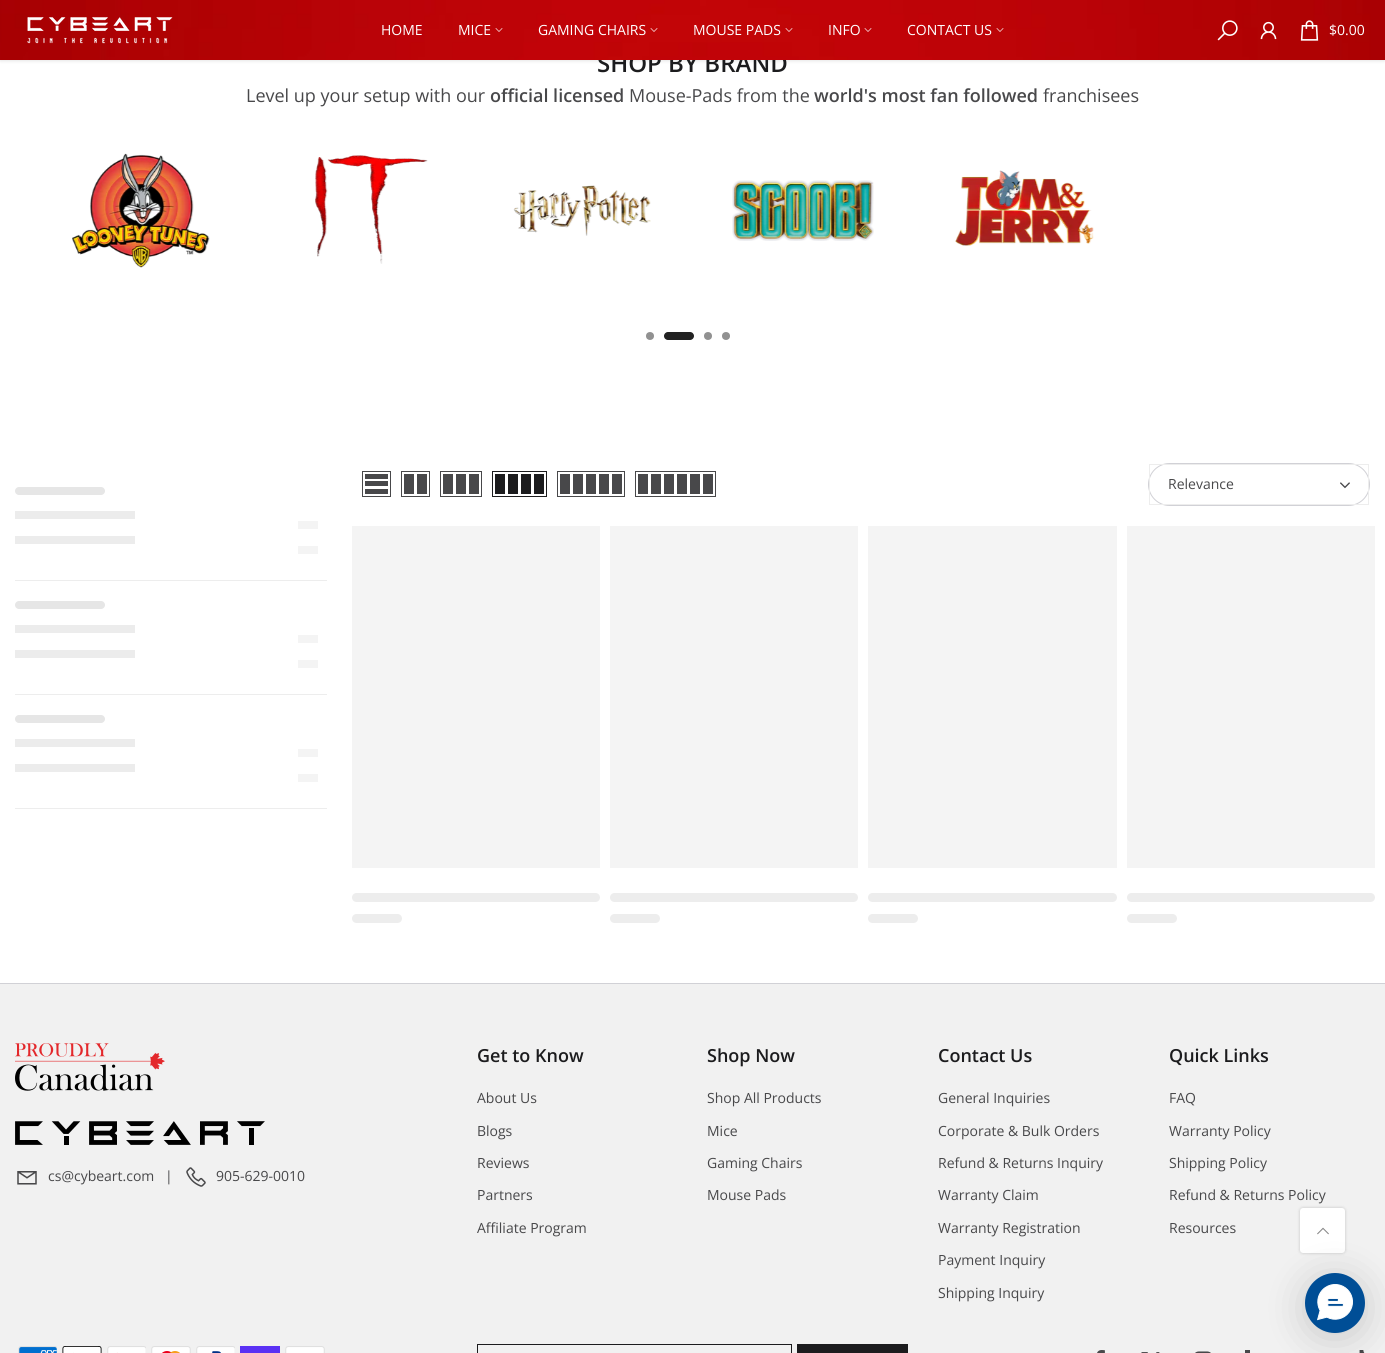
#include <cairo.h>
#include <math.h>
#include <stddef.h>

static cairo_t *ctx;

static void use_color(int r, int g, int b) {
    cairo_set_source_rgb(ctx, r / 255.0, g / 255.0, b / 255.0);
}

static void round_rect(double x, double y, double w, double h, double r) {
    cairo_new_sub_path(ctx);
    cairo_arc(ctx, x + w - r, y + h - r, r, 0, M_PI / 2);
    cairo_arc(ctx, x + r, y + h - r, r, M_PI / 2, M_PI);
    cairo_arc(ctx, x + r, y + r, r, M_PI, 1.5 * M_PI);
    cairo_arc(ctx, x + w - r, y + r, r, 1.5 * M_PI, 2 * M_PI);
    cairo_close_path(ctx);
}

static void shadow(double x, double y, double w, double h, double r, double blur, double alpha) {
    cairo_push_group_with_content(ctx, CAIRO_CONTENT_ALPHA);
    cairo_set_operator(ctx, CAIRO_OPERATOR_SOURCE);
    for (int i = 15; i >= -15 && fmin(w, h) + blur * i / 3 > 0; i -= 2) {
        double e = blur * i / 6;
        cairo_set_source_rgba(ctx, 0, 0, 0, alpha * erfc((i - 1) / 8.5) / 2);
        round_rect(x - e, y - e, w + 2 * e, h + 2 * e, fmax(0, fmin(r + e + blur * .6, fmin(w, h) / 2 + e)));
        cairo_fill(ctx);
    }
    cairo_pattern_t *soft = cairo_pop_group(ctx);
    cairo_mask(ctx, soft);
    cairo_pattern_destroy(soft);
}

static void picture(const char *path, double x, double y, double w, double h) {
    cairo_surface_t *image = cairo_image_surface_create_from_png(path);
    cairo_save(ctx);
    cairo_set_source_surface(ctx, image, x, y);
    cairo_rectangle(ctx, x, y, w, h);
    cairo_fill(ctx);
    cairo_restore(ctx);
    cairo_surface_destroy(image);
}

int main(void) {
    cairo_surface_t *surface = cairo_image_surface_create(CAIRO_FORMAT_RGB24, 1385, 1353);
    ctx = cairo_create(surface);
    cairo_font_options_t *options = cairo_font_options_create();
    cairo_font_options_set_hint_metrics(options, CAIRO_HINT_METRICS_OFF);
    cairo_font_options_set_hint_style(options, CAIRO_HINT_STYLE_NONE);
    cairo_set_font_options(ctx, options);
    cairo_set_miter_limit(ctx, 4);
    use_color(255, 255, 255);
    cairo_paint(ctx);
    use_color(0, 0, 0);
    shadow(0, 1, 1385, 60, 0, 1.5, 0.1);
    cairo_select_font_face(ctx, "Open Sans SemiBold", CAIRO_FONT_SLANT_NORMAL, CAIRO_FONT_WEIGHT_NORMAL);
    cairo_set_font_size(ctx, 24);
    use_color(28, 28, 30);
    cairo_move_to(ctx, 597, 72);
    cairo_show_text(ctx, "SHOP BY BRAND");
    picture("img1.png", 0, 0, 1385, 60);
    picture("img2.png", 27, 17, 146, 27);
    cairo_select_font_face(ctx, "Open Sans", CAIRO_FONT_SLANT_NORMAL, CAIRO_FONT_WEIGHT_NORMAL);
    cairo_set_font_size(ctx, 14);
    use_color(255, 255, 255);
    cairo_move_to(ctx, 381, 35);
    cairo_show_text(ctx, "HOME");
    cairo_move_to(ctx, 458, 35);
    cairo_show_text(ctx, "MICE");
    cairo_new_path(ctx);
    cairo_move_to(ctx, 502, 28.5);
    cairo_line_to(ctx, 499, 31.5);
    cairo_line_to(ctx, 496, 28.5);
    use_color(242, 205, 205);
    cairo_set_line_width(ctx, 0.8);
    cairo_set_line_cap(ctx, CAIRO_LINE_CAP_SQUARE);
    cairo_stroke(ctx);
    use_color(255, 255, 255);
    cairo_move_to(ctx, 538, 35);
    cairo_show_text(ctx, "GAMING CHAIRS");
    cairo_new_path(ctx);
    cairo_move_to(ctx, 657, 28.5);
    cairo_line_to(ctx, 654, 31.5);
    cairo_line_to(ctx, 651, 28.5);
    use_color(243, 205, 205);
    cairo_stroke(ctx);
    use_color(255, 255, 255);
    cairo_move_to(ctx, 693, 35);
    cairo_show_text(ctx, "MOUSE PADS");
    cairo_new_path(ctx);
    cairo_move_to(ctx, 792, 28.5);
    cairo_line_to(ctx, 789, 31.5);
    cairo_line_to(ctx, 786, 28.5);
    use_color(243, 205, 205);
    cairo_stroke(ctx);
    use_color(255, 255, 255);
    cairo_move_to(ctx, 828, 35);
    cairo_show_text(ctx, "INFO");
    cairo_new_path(ctx);
    cairo_move_to(ctx, 871, 28.5);
    cairo_line_to(ctx, 868, 31.5);
    cairo_line_to(ctx, 865, 28.5);
    use_color(243, 205, 206);
    cairo_stroke(ctx);
    use_color(255, 255, 255);
    cairo_move_to(ctx, 907, 35);
    cairo_show_text(ctx, "CONTACT US");
    cairo_new_path(ctx);
    cairo_move_to(ctx, 1003, 28.5);
    cairo_line_to(ctx, 1000, 31.5);
    cairo_line_to(ctx, 997, 28.5);
    use_color(242, 205, 205);
    cairo_stroke(ctx);
    picture("img3.png", 1217, 20, 21, 21);
    picture("img4.png", 1260, 21, 17, 19);
    picture("img5.png", 1300, 20, 19, 21);
    use_color(255, 255, 255);
    cairo_move_to(ctx, 1329, 35);
    cairo_show_text(ctx, "$0.00");
    cairo_set_font_size(ctx, 18);
    use_color(72, 72, 74);
    cairo_move_to(ctx, 246, 102);
    cairo_show_text(ctx, "Level up your setup with our");
    cairo_select_font_face(ctx, "Open Sans SemiBold", CAIRO_FONT_SLANT_NORMAL, CAIRO_FONT_WEIGHT_NORMAL);
    cairo_move_to(ctx, 490, 102);
    cairo_show_text(ctx, "official licensed");
    cairo_select_font_face(ctx, "Open Sans", CAIRO_FONT_SLANT_NORMAL, CAIRO_FONT_WEIGHT_NORMAL);
    cairo_move_to(ctx, 629, 102);
    cairo_show_text(ctx, "Mouse-Pads from the");
    cairo_select_font_face(ctx, "Open Sans SemiBold", CAIRO_FONT_SLANT_NORMAL, CAIRO_FONT_WEIGHT_NORMAL);
    cairo_move_to(ctx, 814, 102);
    cairo_show_text(ctx, "world's most fan followed");
    cairo_select_font_face(ctx, "Open Sans", CAIRO_FONT_SLANT_NORMAL, CAIRO_FONT_WEIGHT_NORMAL);
    cairo_move_to(ctx, 1043, 102);
    cairo_show_text(ctx, "franchisees");
    picture("img6.png", 72, 153, 138, 115);
    picture("img7.png", 315, 155, 113, 109);
    picture("img8.png", 513, 185, 138, 51);
    picture("img9.png", 732, 180, 142, 61);
    picture("img10.png", 955, 170, 139, 76);
    use_color(145, 145, 145);
    cairo_arc(ctx, 650, 336, 4, 0, 2 * M_PI);
    cairo_fill(ctx);
    use_color(34, 34, 34);
    round_rect(664, 332, 30, 8, 4);
    cairo_fill(ctx);
    use_color(145, 145, 145);
    cairo_arc(ctx, 708, 336, 4, 0, 2 * M_PI);
    cairo_fill(ctx);
    cairo_arc(ctx, 726, 336, 4, 0, 2 * M_PI);
    cairo_fill(ctx);
    cairo_rectangle(ctx, 362.5, 471.5, 28, 25);
    use_color(72, 72, 74);
    cairo_set_line_width(ctx, 1);
    cairo_set_line_cap(ctx, CAIRO_LINE_CAP_BUTT);
    cairo_stroke(ctx);
    cairo_rectangle(ctx, 365, 489, 23, 5);
    cairo_fill(ctx);
    cairo_rectangle(ctx, 365, 481, 23, 5);
    cairo_fill(ctx);
    cairo_rectangle(ctx, 365, 474, 23, 5);
    cairo_fill(ctx);
    cairo_rectangle(ctx, 401.5, 471.5, 28, 25);
    cairo_stroke(ctx);
    cairo_rectangle(ctx, 417, 474, 10, 20);
    cairo_fill(ctx);
    cairo_rectangle(ctx, 404, 474, 10, 20);
    cairo_fill(ctx);
    cairo_rectangle(ctx, 440.5, 471.5, 41, 25);
    cairo_stroke(ctx);
    cairo_rectangle(ctx, 469, 474, 10, 20);
    cairo_fill(ctx);
    cairo_rectangle(ctx, 456, 474, 10, 20);
    cairo_fill(ctx);
    cairo_rectangle(ctx, 443, 474, 10, 20);
    cairo_fill(ctx);
    cairo_rectangle(ctx, 492.5, 471.5, 54, 25);
    use_color(28, 28, 30);
    cairo_stroke(ctx);
    cairo_rectangle(ctx, 534, 474, 10, 20);
    cairo_fill(ctx);
    cairo_rectangle(ctx, 521, 474, 10, 20);
    cairo_fill(ctx);
    cairo_rectangle(ctx, 508, 474, 10, 20);
    cairo_fill(ctx);
    cairo_rectangle(ctx, 495, 474, 10, 20);
    cairo_fill(ctx);
    cairo_rectangle(ctx, 557.5, 471.5, 67, 25);
    use_color(72, 72, 74);
    cairo_stroke(ctx);
    cairo_rectangle(ctx, 612, 474, 10, 20);
    cairo_fill(ctx);
    cairo_rectangle(ctx, 599, 474, 10, 20);
    cairo_fill(ctx);
    cairo_rectangle(ctx, 586, 474, 10, 20);
    cairo_fill(ctx);
    cairo_rectangle(ctx, 573, 474, 10, 20);
    cairo_fill(ctx);
    cairo_rectangle(ctx, 560, 474, 10, 20);
    cairo_fill(ctx);
    cairo_rectangle(ctx, 635.5, 471.5, 80, 25);
    cairo_stroke(ctx);
    cairo_rectangle(ctx, 703, 474, 10, 20);
    cairo_fill(ctx);
    cairo_rectangle(ctx, 690, 474, 10, 20);
    cairo_fill(ctx);
    cairo_rectangle(ctx, 677, 474, 10, 20);
    cairo_fill(ctx);
    cairo_rectangle(ctx, 664, 474, 10, 20);
    cairo_fill(ctx);
    cairo_rectangle(ctx, 651, 474, 10, 20);
    cairo_fill(ctx);
    cairo_rectangle(ctx, 638, 474, 10, 20);
    cairo_fill(ctx);
    round_rect(1148.5, 463.5, 221, 42, 21);
    use_color(209, 209, 214);
    cairo_stroke(ctx);
    cairo_rectangle(ctx, 1149.5, 464.5, 219, 40);
    use_color(237, 237, 237);
    cairo_stroke(ctx);
    cairo_set_font_size(ctx, 14);
    use_color(72, 72, 74);
    cairo_move_to(ctx, 1168, 489);
    cairo_show_text(ctx, "Relevance");
    picture("img11.png", 1340, 482, 10, 7);
    use_color(244, 244, 244);
    cairo_rectangle(ctx, 352, 526, 248, 342);
    cairo_fill(ctx);
    use_color(237, 237, 237);
    round_rect(352, 893, 248, 9, 4.5);
    cairo_fill(ctx);
    round_rect(352, 914, 50, 9, 4.5);
    cairo_fill(ctx);
    use_color(244, 244, 244);
    cairo_rectangle(ctx, 610, 526, 248, 342);
    cairo_fill(ctx);
    use_color(237, 237, 237);
    round_rect(610, 893, 248, 9, 4.5);
    cairo_fill(ctx);
    round_rect(610, 914, 50, 9, 4.5);
    cairo_fill(ctx);
    use_color(244, 244, 244);
    cairo_rectangle(ctx, 868, 526, 249, 342);
    cairo_fill(ctx);
    use_color(237, 237, 237);
    round_rect(868, 893, 249, 9, 4.5);
    cairo_fill(ctx);
    round_rect(868, 914, 50, 9, 4.5);
    cairo_fill(ctx);
    use_color(244, 244, 244);
    cairo_rectangle(ctx, 1127, 526, 248, 342);
    cairo_fill(ctx);
    use_color(237, 237, 237);
    round_rect(1127, 893, 248, 9, 4.5);
    cairo_fill(ctx);
    round_rect(1127, 914, 50, 9, 4.5);
    cairo_fill(ctx);
    cairo_rectangle(ctx, 15, 580, 312, 1);
    cairo_fill(ctx);
    use_color(230, 230, 230);
    round_rect(15, 487, 90, 8, 4);
    cairo_fill(ctx);
    use_color(236, 236, 236);
    cairo_rectangle(ctx, 15, 511, 120, 8);
    cairo_fill(ctx);
    use_color(244, 244, 244);
    cairo_rectangle(ctx, 298, 521, 20, 8);
    cairo_fill(ctx);
    use_color(236, 236, 236);
    cairo_rectangle(ctx, 15, 536, 120, 8);
    cairo_fill(ctx);
    use_color(244, 244, 244);
    cairo_rectangle(ctx, 298, 546, 20, 8);
    cairo_fill(ctx);
    use_color(237, 237, 237);
    cairo_rectangle(ctx, 15, 694, 312, 1);
    cairo_fill(ctx);
    use_color(230, 230, 230);
    round_rect(15, 601, 90, 8, 4);
    cairo_fill(ctx);
    use_color(236, 236, 236);
    cairo_rectangle(ctx, 15, 625, 120, 8);
    cairo_fill(ctx);
    use_color(244, 244, 244);
    cairo_rectangle(ctx, 298, 635, 20, 8);
    cairo_fill(ctx);
    use_color(236, 236, 236);
    cairo_rectangle(ctx, 15, 650, 120, 8);
    cairo_fill(ctx);
    use_color(244, 244, 244);
    cairo_rectangle(ctx, 298, 660, 20, 8);
    cairo_fill(ctx);
    use_color(237, 237, 237);
    cairo_rectangle(ctx, 15, 808, 312, 1);
    cairo_fill(ctx);
    use_color(230, 230, 230);
    round_rect(15, 715, 90, 8, 4);
    cairo_fill(ctx);
    use_color(236, 236, 236);
    cairo_rectangle(ctx, 15, 739, 120, 8);
    cairo_fill(ctx);
    use_color(244, 244, 244);
    cairo_rectangle(ctx, 298, 749, 20, 8);
    cairo_fill(ctx);
    use_color(236, 236, 236);
    cairo_rectangle(ctx, 15, 764, 120, 8);
    cairo_fill(ctx);
    use_color(244, 244, 244);
    cairo_rectangle(ctx, 298, 774, 20, 8);
    cairo_fill(ctx);
    use_color(241, 241, 241);
    cairo_rectangle(ctx, 0, 984, 1385, 369);
    cairo_fill(ctx);
    use_color(209, 209, 214);
    cairo_rectangle(ctx, 0, 983, 1385, 1);
    cairo_fill(ctx);
    picture("img12.png", 15, 1043, 150, 48);
    picture("img13.png", 15, 1121, 250, 24);
    picture("img14.png", 17, 1171, 20, 14);
    use_color(72, 72, 74);
    cairo_move_to(ctx, 48, 1181);
    cairo_show_text(ctx, "cs@cybeart.com");
    cairo_move_to(ctx, 165, 1181);
    cairo_show_text(ctx, "|");
    picture("img15.png", 186, 1167, 20, 20);
    cairo_move_to(ctx, 216, 1181);
    cairo_show_text(ctx, "905-629-0010");
    cairo_select_font_face(ctx, "Open Sans SemiBold", CAIRO_FONT_SLANT_NORMAL, CAIRO_FONT_WEIGHT_NORMAL);
    cairo_set_font_size(ctx, 18);
    use_color(28, 28, 30);
    cairo_move_to(ctx, 477, 1062);
    cairo_show_text(ctx, "Get to Know");
    cairo_select_font_face(ctx, "Open Sans", CAIRO_FONT_SLANT_NORMAL, CAIRO_FONT_WEIGHT_NORMAL);
    cairo_set_font_size(ctx, 14);
    use_color(72, 72, 74);
    cairo_move_to(ctx, 477, 1103);
    cairo_show_text(ctx, "About Us");
    cairo_move_to(ctx, 477, 1136);
    cairo_show_text(ctx, "Blogs");
    cairo_move_to(ctx, 477, 1168);
    cairo_show_text(ctx, "Reviews");
    cairo_move_to(ctx, 477, 1200);
    cairo_show_text(ctx, "Partners");
    cairo_move_to(ctx, 477, 1233);
    cairo_show_text(ctx, "Affiliate Program");
    cairo_select_font_face(ctx, "Open Sans SemiBold", CAIRO_FONT_SLANT_NORMAL, CAIRO_FONT_WEIGHT_NORMAL);
    cairo_set_font_size(ctx, 18);
    use_color(28, 28, 30);
    cairo_move_to(ctx, 707, 1062);
    cairo_show_text(ctx, "Shop Now");
    cairo_select_font_face(ctx, "Open Sans", CAIRO_FONT_SLANT_NORMAL, CAIRO_FONT_WEIGHT_NORMAL);
    cairo_set_font_size(ctx, 14);
    use_color(72, 72, 74);
    cairo_move_to(ctx, 707, 1103);
    cairo_show_text(ctx, "Shop All Products");
    cairo_move_to(ctx, 707, 1136);
    cairo_show_text(ctx, "Mice");
    cairo_move_to(ctx, 707, 1168);
    cairo_show_text(ctx, "Gaming Chairs");
    cairo_move_to(ctx, 707, 1200);
    cairo_show_text(ctx, "Mouse Pads");
    cairo_select_font_face(ctx, "Open Sans SemiBold", CAIRO_FONT_SLANT_NORMAL, CAIRO_FONT_WEIGHT_NORMAL);
    cairo_set_font_size(ctx, 18);
    use_color(28, 28, 30);
    cairo_move_to(ctx, 938, 1062);
    cairo_show_text(ctx, "Contact Us");
    cairo_select_font_face(ctx, "Open Sans", CAIRO_FONT_SLANT_NORMAL, CAIRO_FONT_WEIGHT_NORMAL);
    cairo_set_font_size(ctx, 14);
    use_color(72, 72, 74);
    cairo_move_to(ctx, 938, 1103);
    cairo_show_text(ctx, "General Inquiries");
    cairo_move_to(ctx, 938, 1136);
    cairo_show_text(ctx, "Corporate & Bulk Orders");
    cairo_move_to(ctx, 938, 1168);
    cairo_show_text(ctx, "Refund & Returns Inquiry");
    cairo_move_to(ctx, 938, 1200);
    cairo_show_text(ctx, "Warranty Claim");
    cairo_move_to(ctx, 938, 1233);
    cairo_show_text(ctx, "Warranty Registration");
    cairo_move_to(ctx, 938, 1265);
    cairo_show_text(ctx, "Payment Inquiry");
    cairo_move_to(ctx, 938, 1298);
    cairo_show_text(ctx, "Shipping Inquiry");
    cairo_select_font_face(ctx, "Open Sans SemiBold", CAIRO_FONT_SLANT_NORMAL, CAIRO_FONT_WEIGHT_NORMAL);
    cairo_set_font_size(ctx, 18);
    use_color(28, 28, 30);
    cairo_move_to(ctx, 1169, 1062);
    cairo_show_text(ctx, "Quick Links");
    cairo_select_font_face(ctx, "Open Sans", CAIRO_FONT_SLANT_NORMAL, CAIRO_FONT_WEIGHT_NORMAL);
    cairo_set_font_size(ctx, 14);
    use_color(72, 72, 74);
    cairo_move_to(ctx, 1169, 1103);
    cairo_show_text(ctx, "FAQ");
    cairo_move_to(ctx, 1169, 1136);
    cairo_show_text(ctx, "Warranty Policy");
    cairo_move_to(ctx, 1169, 1168);
    cairo_show_text(ctx, "Shipping Policy");
    cairo_move_to(ctx, 1169, 1200);
    cairo_show_text(ctx, "Refund & Returns Policy");
    cairo_move_to(ctx, 1169, 1233);
    cairo_show_text(ctx, "Resources");
    picture("img16.png", 18, 1346, 39, 7);
    picture("img17.png", 62, 1346, 40, 7);
    picture("img18.png", 107, 1346, 39, 7);
    picture("img19.png", 151, 1346, 40, 7);
    picture("img20.png", 196, 1346, 39, 7);
    use_color(90, 49, 244);
    cairo_rectangle(ctx, 240, 1346, 40, 7);
    cairo_fill(ctx);
    picture("img21.png", 285, 1346, 40, 7);
    cairo_rectangle(ctx, 477.5, 1344.5, 314, 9);
    use_color(28, 28, 30);
    cairo_stroke(ctx);
    cairo_rectangle(ctx, 797, 1344, 111, 9);
    cairo_fill(ctx);
    picture("img22.png", 1097, 1350, 8, 3);
    picture("img23.png", 1141, 1352, 19, 1);
    picture("img24.png", 1195, 1351, 16, 2);
    use_color(72, 72, 74);
    cairo_rectangle(ctx, 1245, 1350, 5, 3);
    cairo_fill(ctx);
    picture("img25.png", 1359, 1350, 6, 3);
    use_color(0, 0, 0);
    shadow(1300, 1208, 45, 45, 3, 1.5, 0.2);
    use_color(255, 255, 255);
    round_rect(1300, 1208, 45, 45, 3);
    cairo_fill(ctx);
    picture("img26.png", 1317, 1227, 12, 8);
    use_color(0, 0, 0);
    shadow(1305, 1278, 60, 60, 30, 20, 0.16);
    use_color(0, 78, 150);
    cairo_arc(ctx, 1335, 1303, 30, 0, 2 * M_PI);
    cairo_fill(ctx);
    picture("img27.png", 1317, 1284, 36, 37);
    cairo_surface_write_to_png(surface, "result.png");
    cairo_font_options_destroy(options);
    cairo_destroy(ctx);
    cairo_surface_destroy(surface);
    return 0;
}
